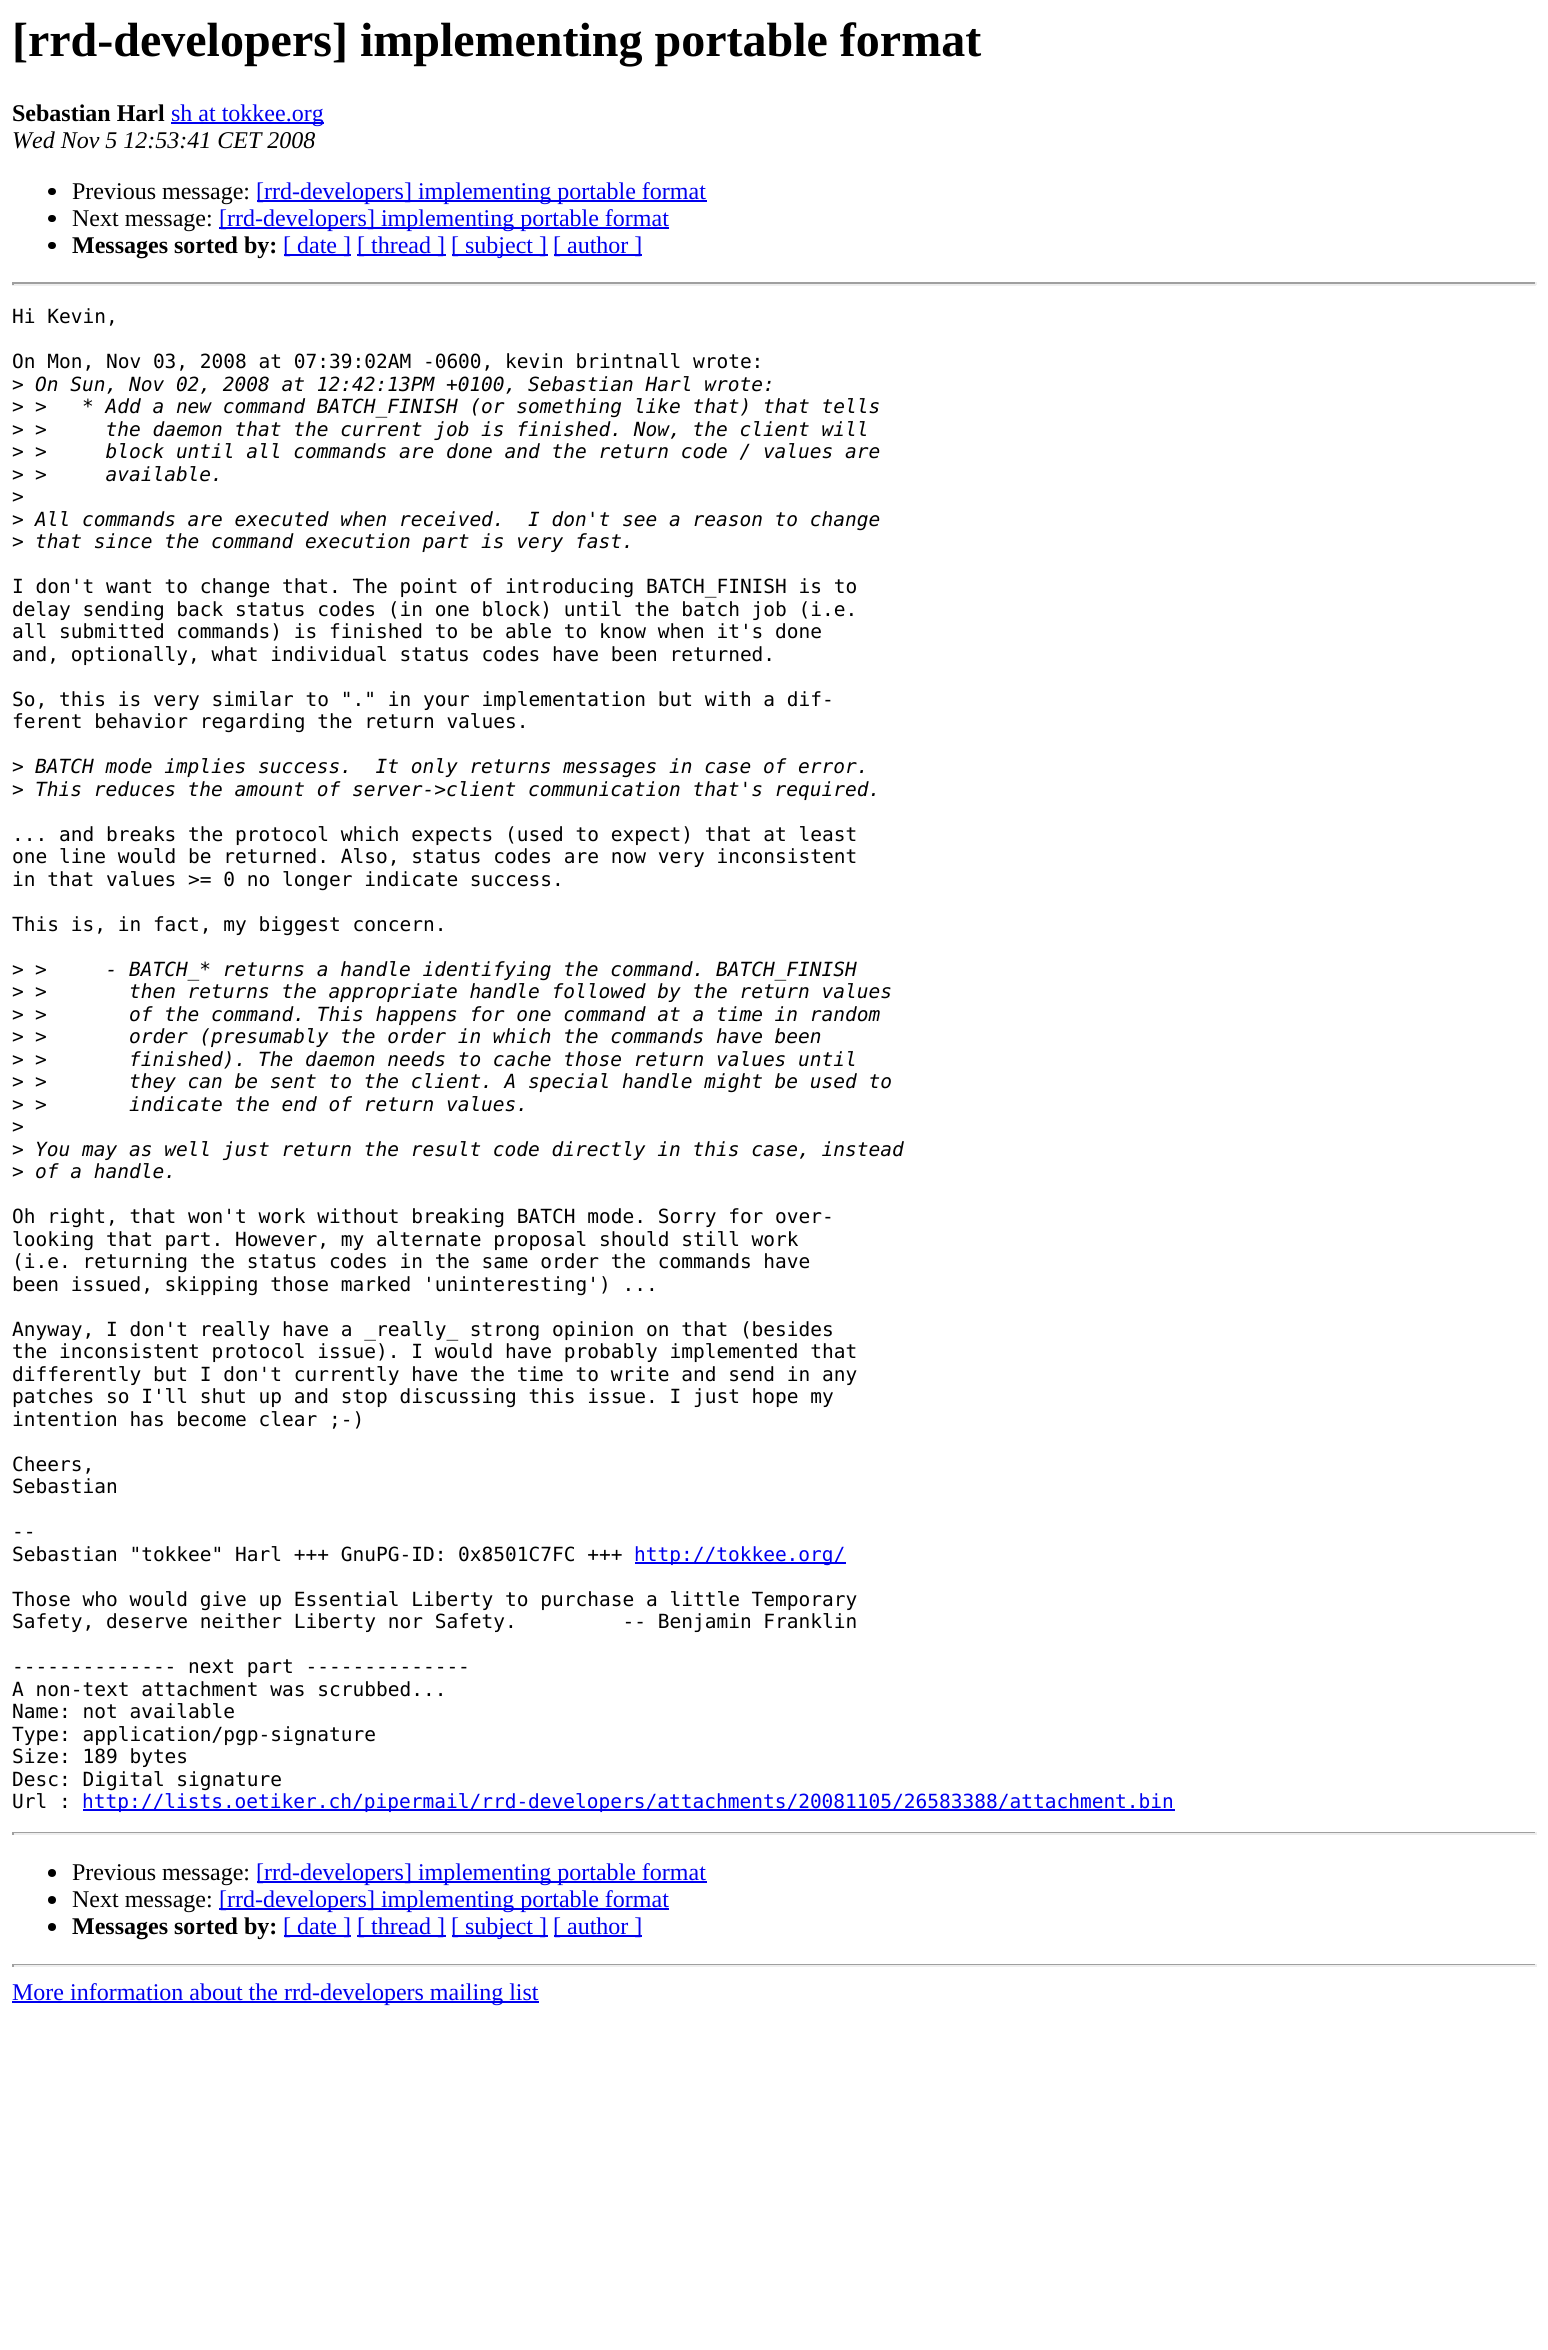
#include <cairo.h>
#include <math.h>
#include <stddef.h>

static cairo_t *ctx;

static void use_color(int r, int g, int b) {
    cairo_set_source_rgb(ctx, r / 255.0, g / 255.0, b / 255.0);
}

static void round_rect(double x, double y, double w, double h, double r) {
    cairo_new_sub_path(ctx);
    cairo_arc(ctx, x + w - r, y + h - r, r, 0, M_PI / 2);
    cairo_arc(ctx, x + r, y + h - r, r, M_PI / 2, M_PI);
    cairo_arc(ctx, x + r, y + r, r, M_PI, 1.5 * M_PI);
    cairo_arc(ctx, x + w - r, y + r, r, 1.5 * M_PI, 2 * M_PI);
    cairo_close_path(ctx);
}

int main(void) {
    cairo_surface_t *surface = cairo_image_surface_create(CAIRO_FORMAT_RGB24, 1548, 2350);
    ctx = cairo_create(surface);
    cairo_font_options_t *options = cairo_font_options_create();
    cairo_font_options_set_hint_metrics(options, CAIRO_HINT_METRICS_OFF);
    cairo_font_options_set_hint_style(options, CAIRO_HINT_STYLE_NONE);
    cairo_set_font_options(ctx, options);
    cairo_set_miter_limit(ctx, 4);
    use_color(255, 255, 255);
    cairo_paint(ctx);
    cairo_select_font_face(ctx, "Liberation Serif", CAIRO_FONT_SLANT_NORMAL, CAIRO_FONT_WEIGHT_BOLD);
    cairo_set_font_size(ctx, 48);
    use_color(0, 0, 0);
    cairo_move_to(ctx, 12, 56);
    cairo_show_text(ctx, "[rrd-developers] implementing portable format");
    cairo_set_font_size(ctx, 24);
    cairo_move_to(ctx, 12, 121);
    cairo_show_text(ctx, "Sebastian Harl");
    use_color(0, 0, 238);
    cairo_rectangle(ctx, 171, 122, 153, 2);
    cairo_fill(ctx);
    cairo_select_font_face(ctx, "Liberation Serif", CAIRO_FONT_SLANT_NORMAL, CAIRO_FONT_WEIGHT_NORMAL);
    cairo_move_to(ctx, 171, 121);
    cairo_show_text(ctx, "sh at tokkee.org");
    cairo_select_font_face(ctx, "Liberation Serif", CAIRO_FONT_SLANT_ITALIC, CAIRO_FONT_WEIGHT_NORMAL);
    use_color(0, 0, 0);
    cairo_move_to(ctx, 12, 148);
    cairo_show_text(ctx, "Wed Nov 5 12:53:41 CET 2008");
    round_rect(48, 188, 8, 7, 3.5);
    cairo_fill(ctx);
    cairo_select_font_face(ctx, "Liberation Serif", CAIRO_FONT_SLANT_NORMAL, CAIRO_FONT_WEIGHT_NORMAL);
    cairo_move_to(ctx, 72, 199);
    cairo_show_text(ctx, "Previous message:");
    use_color(0, 0, 238);
    cairo_rectangle(ctx, 257, 200, 450, 2);
    cairo_fill(ctx);
    cairo_move_to(ctx, 256, 199);
    cairo_show_text(ctx, "[rrd-developers] implementing portable format");
    use_color(0, 0, 0);
    round_rect(48, 215, 8, 7, 3.5);
    cairo_fill(ctx);
    cairo_move_to(ctx, 72, 226);
    cairo_show_text(ctx, "Next message:");
    use_color(0, 0, 238);
    cairo_rectangle(ctx, 219, 227, 450, 2);
    cairo_fill(ctx);
    cairo_move_to(ctx, 219, 226);
    cairo_show_text(ctx, "[rrd-developers] implementing portable format");
    use_color(0, 0, 0);
    round_rect(48, 242, 8, 7, 3.5);
    cairo_fill(ctx);
    cairo_select_font_face(ctx, "Liberation Serif", CAIRO_FONT_SLANT_NORMAL, CAIRO_FONT_WEIGHT_BOLD);
    cairo_move_to(ctx, 72, 253);
    cairo_show_text(ctx, "Messages sorted by:");
    use_color(0, 0, 238);
    cairo_rectangle(ctx, 284, 254, 67, 2);
    cairo_fill(ctx);
    cairo_select_font_face(ctx, "Liberation Serif", CAIRO_FONT_SLANT_NORMAL, CAIRO_FONT_WEIGHT_NORMAL);
    cairo_move_to(ctx, 283, 253);
    cairo_show_text(ctx, "[ date ]");
    cairo_rectangle(ctx, 357, 254, 89, 2);
    cairo_fill(ctx);
    cairo_move_to(ctx, 357, 253);
    cairo_show_text(ctx, "[ thread ]");
    cairo_rectangle(ctx, 452, 254, 96, 2);
    cairo_fill(ctx);
    cairo_move_to(ctx, 451, 253);
    cairo_show_text(ctx, "[ subject ]");
    cairo_rectangle(ctx, 554, 254, 88, 2);
    cairo_fill(ctx);
    cairo_move_to(ctx, 553, 253);
    cairo_show_text(ctx, "[ author ]");
    use_color(159, 159, 159);
    cairo_rectangle(ctx, 12, 282, 1524, 2);
    cairo_fill(ctx);
    use_color(238, 238, 238);
    cairo_rectangle(ctx, 1535, 282, 2, 3);
    cairo_fill(ctx);
    cairo_rectangle(ctx, 12, 284, 1524, 2);
    cairo_fill(ctx);
    use_color(159, 159, 159);
    cairo_rectangle(ctx, 12, 282, 2, 3);
    cairo_fill(ctx);
    cairo_select_font_face(ctx, "DejaVu Sans Mono", CAIRO_FONT_SLANT_NORMAL, CAIRO_FONT_WEIGHT_NORMAL);
    cairo_set_font_size(ctx, 19.5);
    use_color(0, 0, 0);
    cairo_move_to(ctx, 12, 323);
    cairo_show_text(ctx, "Hi Kevin,");
    cairo_move_to(ctx, 12, 368);
    cairo_show_text(ctx, "On Mon, Nov 03, 2008 at 07:39:02AM -0600, kevin brintnall wrote:");
    cairo_move_to(ctx, 12, 391);
    cairo_show_text(ctx, ">");
    cairo_select_font_face(ctx, "DejaVu Sans Mono", CAIRO_FONT_SLANT_ITALIC, CAIRO_FONT_WEIGHT_NORMAL);
    cairo_move_to(ctx, 35, 391);
    cairo_show_text(ctx, "On Sun, Nov 02, 2008 at 12:42:13PM +0100, Sebastian Harl wrote:");
    cairo_select_font_face(ctx, "DejaVu Sans Mono", CAIRO_FONT_SLANT_NORMAL, CAIRO_FONT_WEIGHT_NORMAL);
    cairo_move_to(ctx, 12, 413);
    cairo_show_text(ctx, ">");
    cairo_select_font_face(ctx, "DejaVu Sans Mono", CAIRO_FONT_SLANT_ITALIC, CAIRO_FONT_WEIGHT_NORMAL);
    cairo_move_to(ctx, 35, 413);
    cairo_show_text(ctx, ">   * Add a new command BATCH_FINISH (or something like that) that tells");
    cairo_select_font_face(ctx, "DejaVu Sans Mono", CAIRO_FONT_SLANT_NORMAL, CAIRO_FONT_WEIGHT_NORMAL);
    cairo_move_to(ctx, 12, 436);
    cairo_show_text(ctx, ">");
    cairo_select_font_face(ctx, "DejaVu Sans Mono", CAIRO_FONT_SLANT_ITALIC, CAIRO_FONT_WEIGHT_NORMAL);
    cairo_move_to(ctx, 35, 436);
    cairo_show_text(ctx, ">     the daemon that the current job is finished. Now, the client will");
    cairo_select_font_face(ctx, "DejaVu Sans Mono", CAIRO_FONT_SLANT_NORMAL, CAIRO_FONT_WEIGHT_NORMAL);
    cairo_move_to(ctx, 12, 458);
    cairo_show_text(ctx, ">");
    cairo_select_font_face(ctx, "DejaVu Sans Mono", CAIRO_FONT_SLANT_ITALIC, CAIRO_FONT_WEIGHT_NORMAL);
    cairo_move_to(ctx, 35, 458);
    cairo_show_text(ctx, ">     block until all commands are done and the return code / values are");
    cairo_select_font_face(ctx, "DejaVu Sans Mono", CAIRO_FONT_SLANT_NORMAL, CAIRO_FONT_WEIGHT_NORMAL);
    cairo_move_to(ctx, 12, 481);
    cairo_show_text(ctx, ">");
    cairo_select_font_face(ctx, "DejaVu Sans Mono", CAIRO_FONT_SLANT_ITALIC, CAIRO_FONT_WEIGHT_NORMAL);
    cairo_move_to(ctx, 35, 481);
    cairo_show_text(ctx, ">     available.");
    cairo_select_font_face(ctx, "DejaVu Sans Mono", CAIRO_FONT_SLANT_NORMAL, CAIRO_FONT_WEIGHT_NORMAL);
    cairo_move_to(ctx, 12, 503);
    cairo_show_text(ctx, ">");
    cairo_move_to(ctx, 12, 526);
    cairo_show_text(ctx, ">");
    cairo_select_font_face(ctx, "DejaVu Sans Mono", CAIRO_FONT_SLANT_ITALIC, CAIRO_FONT_WEIGHT_NORMAL);
    cairo_move_to(ctx, 35, 526);
    cairo_show_text(ctx, "All commands are executed when received.  I don't see a reason to change");
    cairo_select_font_face(ctx, "DejaVu Sans Mono", CAIRO_FONT_SLANT_NORMAL, CAIRO_FONT_WEIGHT_NORMAL);
    cairo_move_to(ctx, 12, 548);
    cairo_show_text(ctx, ">");
    cairo_select_font_face(ctx, "DejaVu Sans Mono", CAIRO_FONT_SLANT_ITALIC, CAIRO_FONT_WEIGHT_NORMAL);
    cairo_move_to(ctx, 35, 548);
    cairo_show_text(ctx, "that since the command execution part is very fast.");
    cairo_select_font_face(ctx, "DejaVu Sans Mono", CAIRO_FONT_SLANT_NORMAL, CAIRO_FONT_WEIGHT_NORMAL);
    cairo_move_to(ctx, 12, 593);
    cairo_show_text(ctx, "I don't want to change that. The point of introducing BATCH_FINISH is to");
    cairo_move_to(ctx, 12, 616);
    cairo_show_text(ctx, "delay sending back status codes (in one block) until the batch job (i.e.");
    cairo_move_to(ctx, 12, 638);
    cairo_show_text(ctx, "all submitted commands) is finished to be able to know when it's done");
    cairo_move_to(ctx, 12, 661);
    cairo_show_text(ctx, "and, optionally, what individual status codes have been returned.");
    cairo_move_to(ctx, 12, 706);
    cairo_show_text(ctx, "So, this is very similar to \".\" in your implementation but with a dif-");
    cairo_move_to(ctx, 12, 728);
    cairo_show_text(ctx, "ferent behavior regarding the return values.");
    cairo_move_to(ctx, 12, 773);
    cairo_show_text(ctx, ">");
    cairo_select_font_face(ctx, "DejaVu Sans Mono", CAIRO_FONT_SLANT_ITALIC, CAIRO_FONT_WEIGHT_NORMAL);
    cairo_move_to(ctx, 35, 773);
    cairo_show_text(ctx, "BATCH mode implies success.  It only returns messages in case of error.");
    cairo_select_font_face(ctx, "DejaVu Sans Mono", CAIRO_FONT_SLANT_NORMAL, CAIRO_FONT_WEIGHT_NORMAL);
    cairo_move_to(ctx, 12, 796);
    cairo_show_text(ctx, ">");
    cairo_select_font_face(ctx, "DejaVu Sans Mono", CAIRO_FONT_SLANT_ITALIC, CAIRO_FONT_WEIGHT_NORMAL);
    cairo_move_to(ctx, 35, 796);
    cairo_show_text(ctx, "This reduces the amount of server->client communication that's required.");
    cairo_select_font_face(ctx, "DejaVu Sans Mono", CAIRO_FONT_SLANT_NORMAL, CAIRO_FONT_WEIGHT_NORMAL);
    cairo_move_to(ctx, 12, 841);
    cairo_show_text(ctx, "... and breaks the protocol which expects (used to expect) that at least");
    cairo_move_to(ctx, 12, 863);
    cairo_show_text(ctx, "one line would be returned. Also, status codes are now very inconsistent");
    cairo_move_to(ctx, 12, 886);
    cairo_show_text(ctx, "in that values >= 0 no longer indicate success.");
    cairo_move_to(ctx, 12, 931);
    cairo_show_text(ctx, "This is, in fact, my biggest concern.");
    cairo_move_to(ctx, 12, 976);
    cairo_show_text(ctx, ">");
    cairo_select_font_face(ctx, "DejaVu Sans Mono", CAIRO_FONT_SLANT_ITALIC, CAIRO_FONT_WEIGHT_NORMAL);
    cairo_move_to(ctx, 35, 976);
    cairo_show_text(ctx, ">     - BATCH_* returns a handle identifying the command. BATCH_FINISH");
    cairo_select_font_face(ctx, "DejaVu Sans Mono", CAIRO_FONT_SLANT_NORMAL, CAIRO_FONT_WEIGHT_NORMAL);
    cairo_move_to(ctx, 12, 998);
    cairo_show_text(ctx, ">");
    cairo_select_font_face(ctx, "DejaVu Sans Mono", CAIRO_FONT_SLANT_ITALIC, CAIRO_FONT_WEIGHT_NORMAL);
    cairo_move_to(ctx, 35, 998);
    cairo_show_text(ctx, ">       then returns the appropriate handle followed by the return values");
    cairo_select_font_face(ctx, "DejaVu Sans Mono", CAIRO_FONT_SLANT_NORMAL, CAIRO_FONT_WEIGHT_NORMAL);
    cairo_move_to(ctx, 12, 1021);
    cairo_show_text(ctx, ">");
    cairo_select_font_face(ctx, "DejaVu Sans Mono", CAIRO_FONT_SLANT_ITALIC, CAIRO_FONT_WEIGHT_NORMAL);
    cairo_move_to(ctx, 35, 1021);
    cairo_show_text(ctx, ">       of the command. This happens for one command at a time in random");
    cairo_select_font_face(ctx, "DejaVu Sans Mono", CAIRO_FONT_SLANT_NORMAL, CAIRO_FONT_WEIGHT_NORMAL);
    cairo_move_to(ctx, 12, 1043);
    cairo_show_text(ctx, ">");
    cairo_select_font_face(ctx, "DejaVu Sans Mono", CAIRO_FONT_SLANT_ITALIC, CAIRO_FONT_WEIGHT_NORMAL);
    cairo_move_to(ctx, 35, 1043);
    cairo_show_text(ctx, ">       order (presumably the order in which the commands have been");
    cairo_select_font_face(ctx, "DejaVu Sans Mono", CAIRO_FONT_SLANT_NORMAL, CAIRO_FONT_WEIGHT_NORMAL);
    cairo_move_to(ctx, 12, 1066);
    cairo_show_text(ctx, ">");
    cairo_select_font_face(ctx, "DejaVu Sans Mono", CAIRO_FONT_SLANT_ITALIC, CAIRO_FONT_WEIGHT_NORMAL);
    cairo_move_to(ctx, 35, 1066);
    cairo_show_text(ctx, ">       finished). The daemon needs to cache those return values until");
    cairo_select_font_face(ctx, "DejaVu Sans Mono", CAIRO_FONT_SLANT_NORMAL, CAIRO_FONT_WEIGHT_NORMAL);
    cairo_move_to(ctx, 12, 1088);
    cairo_show_text(ctx, ">");
    cairo_select_font_face(ctx, "DejaVu Sans Mono", CAIRO_FONT_SLANT_ITALIC, CAIRO_FONT_WEIGHT_NORMAL);
    cairo_move_to(ctx, 35, 1088);
    cairo_show_text(ctx, ">       they can be sent to the client. A special handle might be used to");
    cairo_select_font_face(ctx, "DejaVu Sans Mono", CAIRO_FONT_SLANT_NORMAL, CAIRO_FONT_WEIGHT_NORMAL);
    cairo_move_to(ctx, 12, 1111);
    cairo_show_text(ctx, ">");
    cairo_select_font_face(ctx, "DejaVu Sans Mono", CAIRO_FONT_SLANT_ITALIC, CAIRO_FONT_WEIGHT_NORMAL);
    cairo_move_to(ctx, 35, 1111);
    cairo_show_text(ctx, ">       indicate the end of return values.");
    cairo_select_font_face(ctx, "DejaVu Sans Mono", CAIRO_FONT_SLANT_NORMAL, CAIRO_FONT_WEIGHT_NORMAL);
    cairo_move_to(ctx, 12, 1133);
    cairo_show_text(ctx, ">");
    cairo_move_to(ctx, 12, 1156);
    cairo_show_text(ctx, ">");
    cairo_select_font_face(ctx, "DejaVu Sans Mono", CAIRO_FONT_SLANT_ITALIC, CAIRO_FONT_WEIGHT_NORMAL);
    cairo_move_to(ctx, 35, 1156);
    cairo_show_text(ctx, "You may as well just return the result code directly in this case, instead");
    cairo_select_font_face(ctx, "DejaVu Sans Mono", CAIRO_FONT_SLANT_NORMAL, CAIRO_FONT_WEIGHT_NORMAL);
    cairo_move_to(ctx, 12, 1178);
    cairo_show_text(ctx, ">");
    cairo_select_font_face(ctx, "DejaVu Sans Mono", CAIRO_FONT_SLANT_ITALIC, CAIRO_FONT_WEIGHT_NORMAL);
    cairo_move_to(ctx, 35, 1178);
    cairo_show_text(ctx, "of a handle.");
    cairo_select_font_face(ctx, "DejaVu Sans Mono", CAIRO_FONT_SLANT_NORMAL, CAIRO_FONT_WEIGHT_NORMAL);
    cairo_move_to(ctx, 12, 1223);
    cairo_show_text(ctx, "Oh right, that won't work without breaking BATCH mode. Sorry for over-");
    cairo_move_to(ctx, 12, 1246);
    cairo_show_text(ctx, "looking that part. However, my alternate proposal should still work");
    cairo_move_to(ctx, 12, 1268);
    cairo_show_text(ctx, "(i.e. returning the status codes in the same order the commands have");
    cairo_move_to(ctx, 12, 1291);
    cairo_show_text(ctx, "been issued, skipping those marked 'uninteresting') ...");
    cairo_move_to(ctx, 12, 1336);
    cairo_show_text(ctx, "Anyway, I don't really have a _really_ strong opinion on that (besides");
    cairo_move_to(ctx, 12, 1358);
    cairo_show_text(ctx, "the inconsistent protocol issue). I would have probably implemented that");
    cairo_move_to(ctx, 12, 1381);
    cairo_show_text(ctx, "differently but I don't currently have the time to write and send in any");
    cairo_move_to(ctx, 12, 1403);
    cairo_show_text(ctx, "patches so I'll shut up and stop discussing this issue. I just hope my");
    cairo_move_to(ctx, 12, 1426);
    cairo_show_text(ctx, "intention has become clear ;-)");
    cairo_move_to(ctx, 12, 1471);
    cairo_show_text(ctx, "Cheers,");
    cairo_move_to(ctx, 12, 1493);
    cairo_show_text(ctx, "Sebastian");
    cairo_move_to(ctx, 12, 1538);
    cairo_show_text(ctx, "--");
    cairo_move_to(ctx, 12, 1561);
    cairo_show_text(ctx, "Sebastian \"tokkee\" Harl +++ GnuPG-ID: 0x8501C7FC +++");
    use_color(0, 0, 238);
    cairo_rectangle(ctx, 635, 1562, 211, 2);
    cairo_fill(ctx);
    cairo_move_to(ctx, 634, 1561);
    cairo_show_text(ctx, "http://tokkee.org/");
    use_color(0, 0, 0);
    cairo_move_to(ctx, 12, 1606);
    cairo_show_text(ctx, "Those who would give up Essential Liberty to purchase a little Temporary");
    cairo_move_to(ctx, 12, 1628);
    cairo_show_text(ctx, "Safety, deserve neither Liberty nor Safety.         -- Benjamin Franklin");
    cairo_move_to(ctx, 12, 1673);
    cairo_show_text(ctx, "-------------- next part --------------");
    cairo_move_to(ctx, 12, 1696);
    cairo_show_text(ctx, "A non-text attachment was scrubbed...");
    cairo_move_to(ctx, 12, 1718);
    cairo_show_text(ctx, "Name: not available");
    cairo_move_to(ctx, 12, 1741);
    cairo_show_text(ctx, "Type: application/pgp-signature");
    cairo_move_to(ctx, 12, 1763);
    cairo_show_text(ctx, "Size: 189 bytes");
    cairo_move_to(ctx, 12, 1786);
    cairo_show_text(ctx, "Desc: Digital signature");
    cairo_move_to(ctx, 12, 1808);
    cairo_show_text(ctx, "Url :");
    use_color(0, 0, 238);
    cairo_rectangle(ctx, 83, 1809, 1092, 2);
    cairo_fill(ctx);
    cairo_move_to(ctx, 82, 1808);
    cairo_show_text(ctx, "http://lists.oetiker.ch/pipermail/rrd-developers/attachments/20081105/26583388/attachment.bin");
    use_color(159, 159, 159);
    cairo_rectangle(ctx, 12, 1832, 1524, 1);
    cairo_fill(ctx);
    use_color(238, 238, 238);
    cairo_rectangle(ctx, 1535, 1832, 2, 3);
    cairo_fill(ctx);
    cairo_rectangle(ctx, 12, 1833, 1524, 2);
    cairo_fill(ctx);
    use_color(159, 159, 159);
    cairo_rectangle(ctx, 12, 1832, 2, 3);
    cairo_fill(ctx);
    use_color(0, 0, 0);
    cairo_arc(ctx, 52, 1873, 4, 0, 2 * M_PI);
    cairo_fill(ctx);
    cairo_select_font_face(ctx, "Liberation Serif", CAIRO_FONT_SLANT_NORMAL, CAIRO_FONT_WEIGHT_NORMAL);
    cairo_set_font_size(ctx, 24);
    cairo_move_to(ctx, 72, 1880);
    cairo_show_text(ctx, "Previous message:");
    use_color(0, 0, 238);
    cairo_rectangle(ctx, 257, 1881, 450, 2);
    cairo_fill(ctx);
    cairo_move_to(ctx, 256, 1880);
    cairo_show_text(ctx, "[rrd-developers] implementing portable format");
    use_color(0, 0, 0);
    cairo_new_path(ctx);
    cairo_arc(ctx, 52, 1900, 4, 0, 2 * M_PI);
    cairo_fill(ctx);
    cairo_move_to(ctx, 72, 1907);
    cairo_show_text(ctx, "Next message:");
    use_color(0, 0, 238);
    cairo_rectangle(ctx, 219, 1908, 450, 2);
    cairo_fill(ctx);
    cairo_move_to(ctx, 219, 1907);
    cairo_show_text(ctx, "[rrd-developers] implementing portable format");
    use_color(0, 0, 0);
    cairo_new_path(ctx);
    cairo_arc(ctx, 52, 1927, 4, 0, 2 * M_PI);
    cairo_fill(ctx);
    cairo_select_font_face(ctx, "Liberation Serif", CAIRO_FONT_SLANT_NORMAL, CAIRO_FONT_WEIGHT_BOLD);
    cairo_move_to(ctx, 72, 1934);
    cairo_show_text(ctx, "Messages sorted by:");
    use_color(0, 0, 238);
    cairo_rectangle(ctx, 284, 1935, 67, 2);
    cairo_fill(ctx);
    cairo_select_font_face(ctx, "Liberation Serif", CAIRO_FONT_SLANT_NORMAL, CAIRO_FONT_WEIGHT_NORMAL);
    cairo_move_to(ctx, 283, 1934);
    cairo_show_text(ctx, "[ date ]");
    cairo_rectangle(ctx, 357, 1935, 89, 2);
    cairo_fill(ctx);
    cairo_move_to(ctx, 357, 1934);
    cairo_show_text(ctx, "[ thread ]");
    cairo_rectangle(ctx, 452, 1935, 96, 2);
    cairo_fill(ctx);
    cairo_move_to(ctx, 451, 1934);
    cairo_show_text(ctx, "[ subject ]");
    cairo_rectangle(ctx, 554, 1935, 88, 2);
    cairo_fill(ctx);
    cairo_move_to(ctx, 553, 1934);
    cairo_show_text(ctx, "[ author ]");
    use_color(159, 159, 159);
    cairo_rectangle(ctx, 12, 1964, 1524, 1);
    cairo_fill(ctx);
    use_color(238, 238, 238);
    cairo_rectangle(ctx, 1535, 1964, 2, 3);
    cairo_fill(ctx);
    cairo_rectangle(ctx, 12, 1965, 1524, 2);
    cairo_fill(ctx);
    use_color(159, 159, 159);
    cairo_rectangle(ctx, 12, 1964, 2, 3);
    cairo_fill(ctx);
    use_color(0, 0, 238);
    cairo_rectangle(ctx, 12, 2001, 527, 2);
    cairo_fill(ctx);
    cairo_move_to(ctx, 12, 2000);
    cairo_show_text(ctx, "More information about the rrd-developers mailing list");
    cairo_surface_write_to_png(surface, "result.png");
    cairo_font_options_destroy(options);
    cairo_destroy(ctx);
    cairo_surface_destroy(surface);
    return 0;
}
